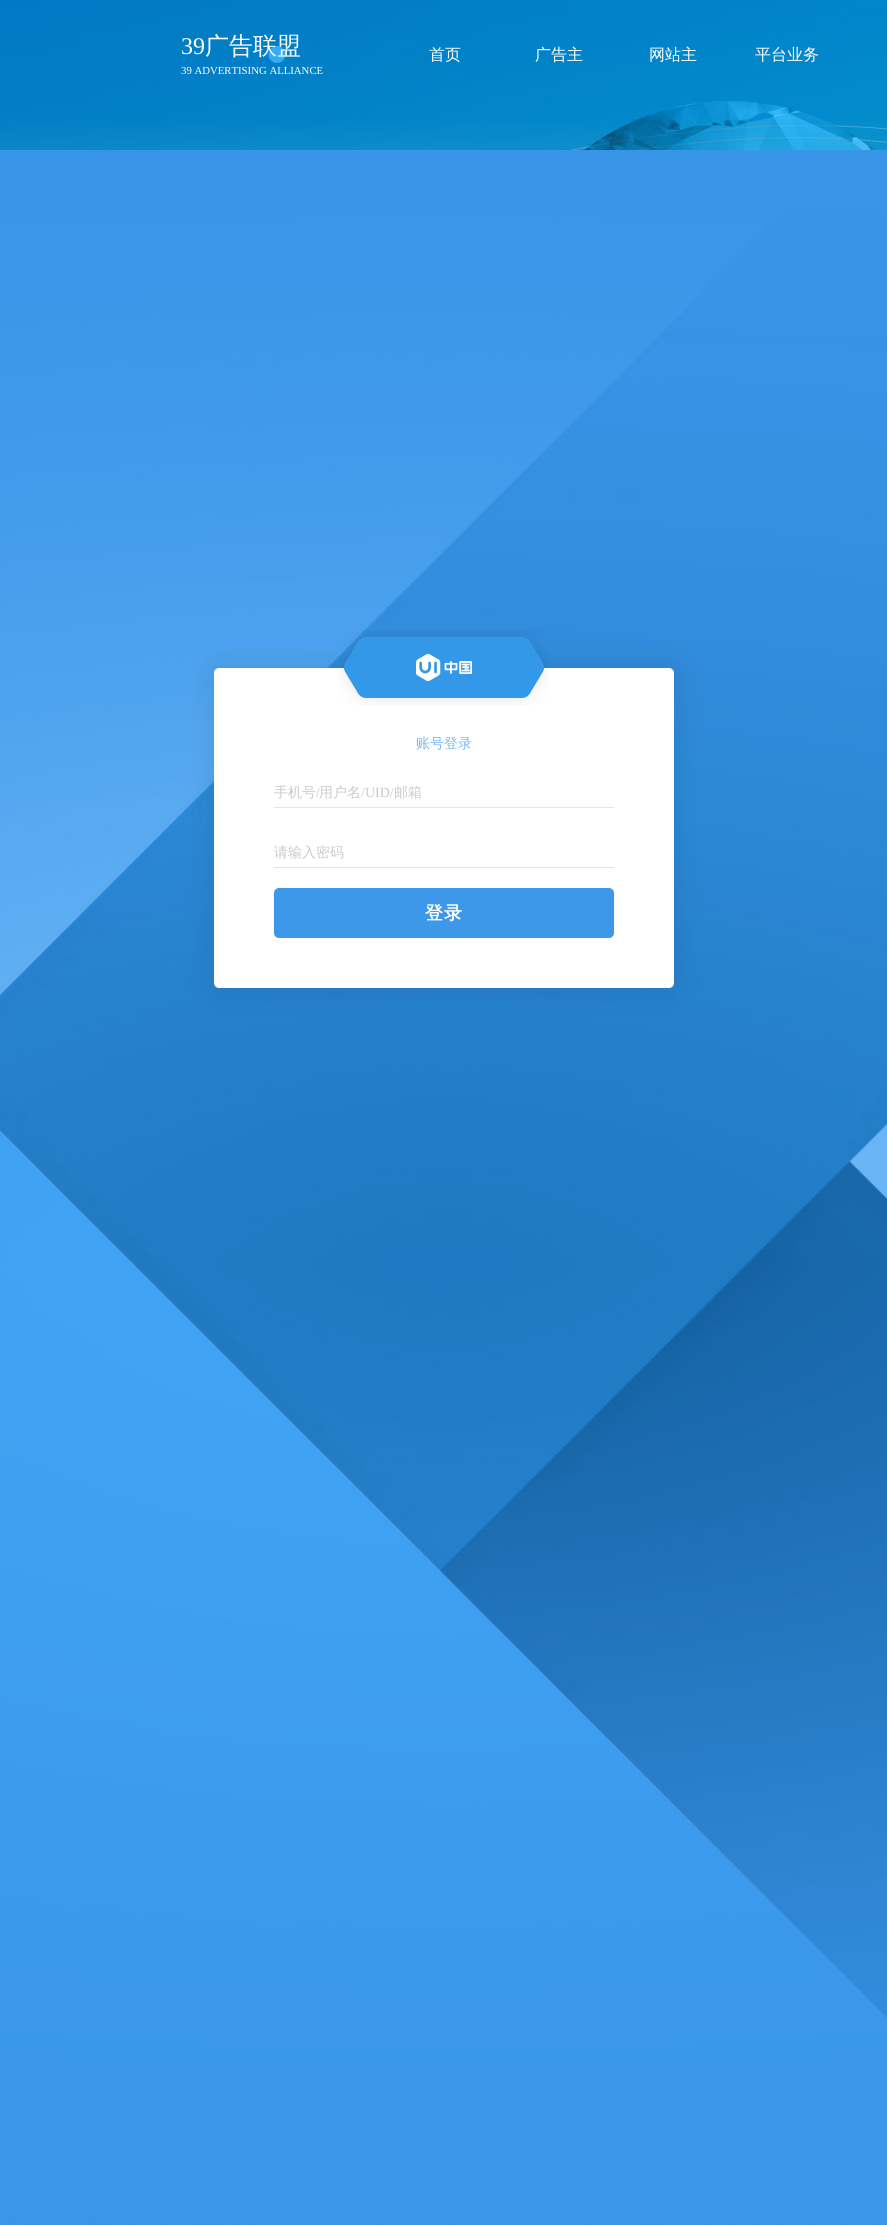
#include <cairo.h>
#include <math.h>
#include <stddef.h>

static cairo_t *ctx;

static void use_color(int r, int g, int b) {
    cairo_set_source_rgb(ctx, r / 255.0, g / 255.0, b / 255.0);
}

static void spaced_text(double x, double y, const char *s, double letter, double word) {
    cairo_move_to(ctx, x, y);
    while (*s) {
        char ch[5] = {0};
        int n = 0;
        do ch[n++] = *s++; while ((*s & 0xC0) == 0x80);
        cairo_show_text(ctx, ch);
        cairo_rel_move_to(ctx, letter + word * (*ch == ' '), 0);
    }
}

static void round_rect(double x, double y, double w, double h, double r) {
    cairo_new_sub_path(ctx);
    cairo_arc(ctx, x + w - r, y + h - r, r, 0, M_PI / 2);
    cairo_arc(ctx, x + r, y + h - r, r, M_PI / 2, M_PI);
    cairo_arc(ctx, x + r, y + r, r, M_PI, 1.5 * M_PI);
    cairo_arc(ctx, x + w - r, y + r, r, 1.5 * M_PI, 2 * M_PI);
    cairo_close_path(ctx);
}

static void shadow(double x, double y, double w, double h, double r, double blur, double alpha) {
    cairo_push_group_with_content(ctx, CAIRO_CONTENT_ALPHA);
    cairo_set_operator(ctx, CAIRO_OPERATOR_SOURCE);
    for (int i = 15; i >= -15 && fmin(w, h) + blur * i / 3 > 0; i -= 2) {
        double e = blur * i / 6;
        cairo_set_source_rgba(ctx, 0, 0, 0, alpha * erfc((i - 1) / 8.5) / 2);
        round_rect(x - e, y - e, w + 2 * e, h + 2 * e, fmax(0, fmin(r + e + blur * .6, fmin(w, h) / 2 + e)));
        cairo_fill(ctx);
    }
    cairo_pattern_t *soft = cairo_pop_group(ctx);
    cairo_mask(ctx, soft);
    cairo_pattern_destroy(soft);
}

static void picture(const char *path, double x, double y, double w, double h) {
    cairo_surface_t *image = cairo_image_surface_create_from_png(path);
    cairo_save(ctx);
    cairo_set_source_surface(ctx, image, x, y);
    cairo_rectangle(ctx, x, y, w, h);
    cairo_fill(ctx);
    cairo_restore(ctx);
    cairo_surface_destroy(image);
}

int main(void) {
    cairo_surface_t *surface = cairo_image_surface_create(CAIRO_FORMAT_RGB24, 887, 2225);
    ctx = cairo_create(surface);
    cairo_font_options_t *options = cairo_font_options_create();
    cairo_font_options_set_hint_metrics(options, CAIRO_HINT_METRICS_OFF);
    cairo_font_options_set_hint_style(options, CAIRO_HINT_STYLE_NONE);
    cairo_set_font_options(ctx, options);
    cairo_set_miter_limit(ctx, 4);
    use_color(255, 255, 255);
    cairo_paint(ctx);
    picture("img1.png", 0, 0, 887, 150);
    cairo_select_font_face(ctx, "Liberation Serif", CAIRO_FONT_SLANT_NORMAL, CAIRO_FONT_WEIGHT_NORMAL);
    cairo_set_font_size(ctx, 24);
    use_color(255, 255, 255);
    cairo_move_to(ctx, 181, 54);
    cairo_show_text(ctx, "39");
    cairo_select_font_face(ctx, "WenQuanYi Zen Hei Medium", CAIRO_FONT_SLANT_NORMAL, CAIRO_FONT_WEIGHT_NORMAL);
    cairo_move_to(ctx, 205, 54);
    cairo_show_text(ctx, "广告联盟");
    cairo_select_font_face(ctx, "Liberation Serif", CAIRO_FONT_SLANT_NORMAL, CAIRO_FONT_WEIGHT_NORMAL);
    cairo_set_font_size(ctx, 10.75);
    cairo_move_to(ctx, 181, 74);
    cairo_show_text(ctx, "39 ADVERTISING ALLIANCE");
    cairo_select_font_face(ctx, "WenQuanYi Zen Hei Medium", CAIRO_FONT_SLANT_NORMAL, CAIRO_FONT_WEIGHT_NORMAL);
    cairo_set_font_size(ctx, 16);
    cairo_move_to(ctx, 429, 60);
    cairo_show_text(ctx, "首页");
    cairo_move_to(ctx, 535, 60);
    cairo_show_text(ctx, "广告主");
    cairo_move_to(ctx, 649, 60);
    cairo_show_text(ctx, "网站主");
    cairo_move_to(ctx, 755, 60);
    cairo_show_text(ctx, "平台业务");
    picture("img2.png", 0, 150, 887, 2075);
    use_color(0, 0, 0);
    shadow(214, 668, 460, 320, 5, 15, 0.1);
    use_color(255, 255, 255);
    round_rect(214, 668, 460, 320, 5);
    cairo_fill(ctx);
    picture("img3.png", 339, 630, 210, 75);
    cairo_set_font_size(ctx, 14);
    use_color(118, 185, 247);
    cairo_move_to(ctx, 416, 748);
    cairo_show_text(ctx, "账号登录");
    use_color(229, 229, 229);
    cairo_rectangle(ctx, 274, 807, 340, 1);
    cairo_fill(ctx);
    use_color(202, 202, 202);
    cairo_move_to(ctx, 274, 797);
    cairo_show_text(ctx, "手机号");
    cairo_select_font_face(ctx, "Liberation Serif", CAIRO_FONT_SLANT_NORMAL, CAIRO_FONT_WEIGHT_NORMAL);
    cairo_move_to(ctx, 316, 797);
    cairo_show_text(ctx, "/");
    cairo_select_font_face(ctx, "WenQuanYi Zen Hei Medium", CAIRO_FONT_SLANT_NORMAL, CAIRO_FONT_WEIGHT_NORMAL);
    cairo_move_to(ctx, 319, 797);
    cairo_show_text(ctx, "用户名");
    cairo_select_font_face(ctx, "Liberation Serif", CAIRO_FONT_SLANT_NORMAL, CAIRO_FONT_WEIGHT_NORMAL);
    cairo_move_to(ctx, 361, 797);
    cairo_show_text(ctx, "/UID/");
    cairo_select_font_face(ctx, "WenQuanYi Zen Hei Medium", CAIRO_FONT_SLANT_NORMAL, CAIRO_FONT_WEIGHT_NORMAL);
    cairo_move_to(ctx, 394, 797);
    cairo_show_text(ctx, "邮箱");
    use_color(229, 229, 229);
    cairo_rectangle(ctx, 274, 867, 340, 1);
    cairo_fill(ctx);
    use_color(202, 202, 202);
    cairo_move_to(ctx, 274, 857);
    cairo_show_text(ctx, "请输入密码");
    use_color(61, 152, 233);
    round_rect(274, 888, 340, 50, 5);
    cairo_fill(ctx);
    cairo_select_font_face(ctx, "WenQuanYi Zen Hei", CAIRO_FONT_SLANT_NORMAL, CAIRO_FONT_WEIGHT_BOLD);
    cairo_set_font_size(ctx, 18);
    use_color(255, 255, 255);
    spaced_text(425, 919, "登录", 1, 0);
    cairo_surface_write_to_png(surface, "result.png");
    cairo_font_options_destroy(options);
    cairo_destroy(ctx);
    cairo_surface_destroy(surface);
    return 0;
}
